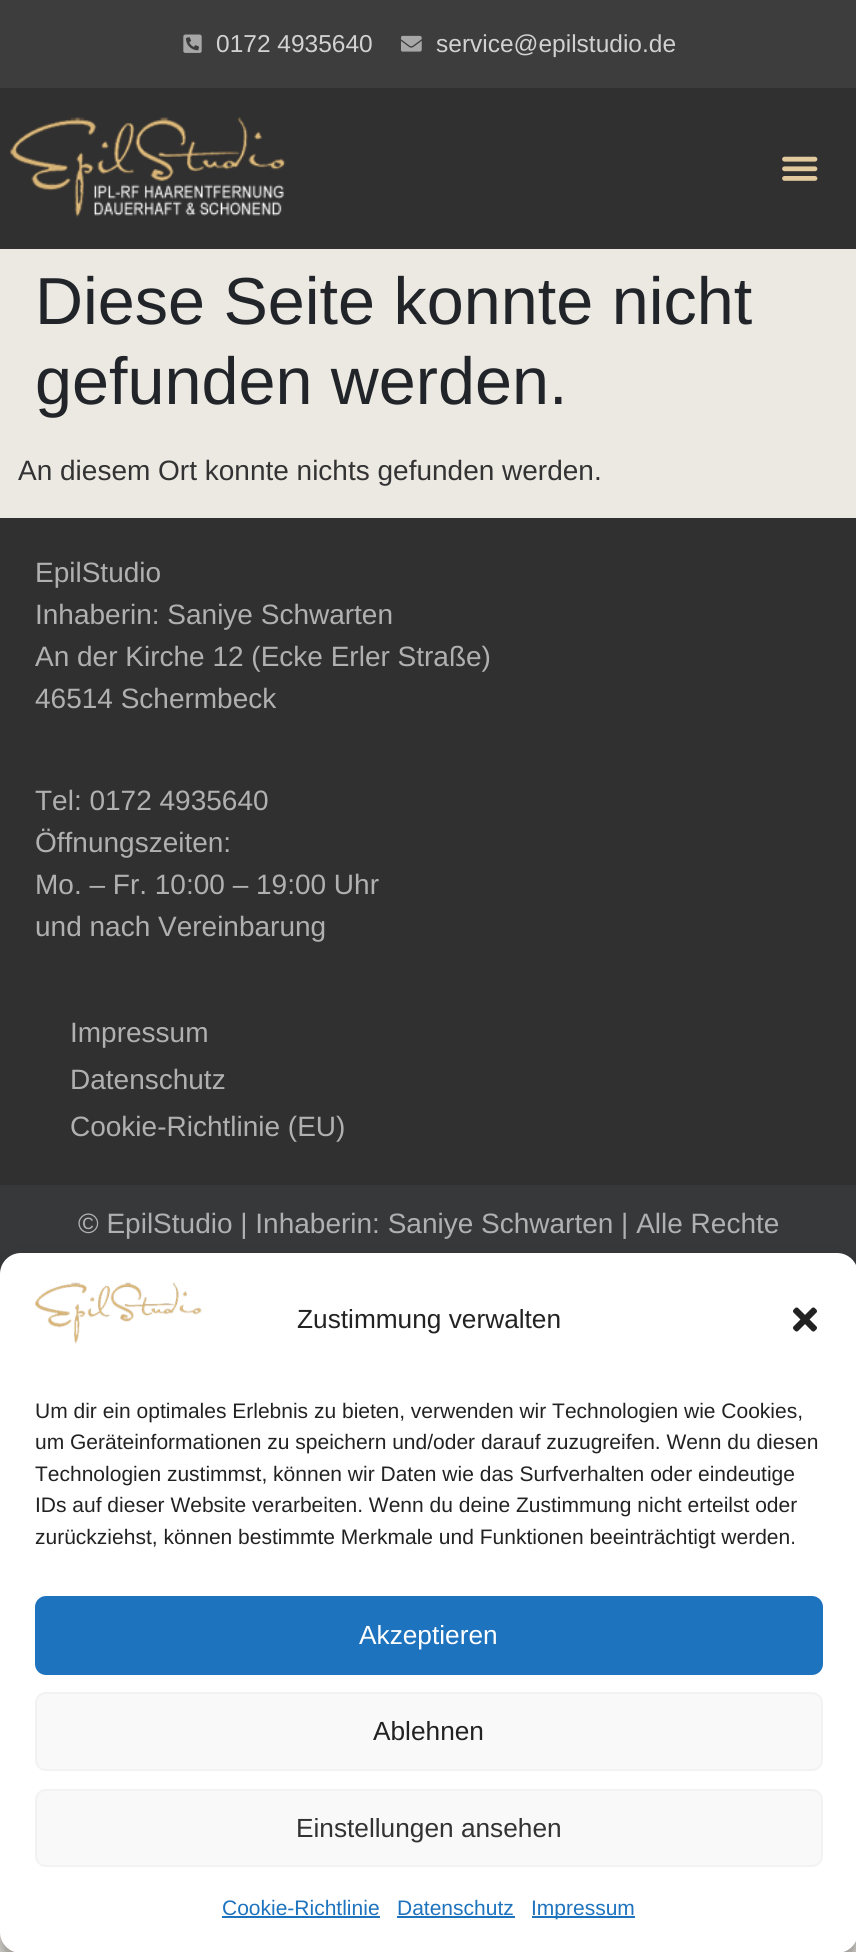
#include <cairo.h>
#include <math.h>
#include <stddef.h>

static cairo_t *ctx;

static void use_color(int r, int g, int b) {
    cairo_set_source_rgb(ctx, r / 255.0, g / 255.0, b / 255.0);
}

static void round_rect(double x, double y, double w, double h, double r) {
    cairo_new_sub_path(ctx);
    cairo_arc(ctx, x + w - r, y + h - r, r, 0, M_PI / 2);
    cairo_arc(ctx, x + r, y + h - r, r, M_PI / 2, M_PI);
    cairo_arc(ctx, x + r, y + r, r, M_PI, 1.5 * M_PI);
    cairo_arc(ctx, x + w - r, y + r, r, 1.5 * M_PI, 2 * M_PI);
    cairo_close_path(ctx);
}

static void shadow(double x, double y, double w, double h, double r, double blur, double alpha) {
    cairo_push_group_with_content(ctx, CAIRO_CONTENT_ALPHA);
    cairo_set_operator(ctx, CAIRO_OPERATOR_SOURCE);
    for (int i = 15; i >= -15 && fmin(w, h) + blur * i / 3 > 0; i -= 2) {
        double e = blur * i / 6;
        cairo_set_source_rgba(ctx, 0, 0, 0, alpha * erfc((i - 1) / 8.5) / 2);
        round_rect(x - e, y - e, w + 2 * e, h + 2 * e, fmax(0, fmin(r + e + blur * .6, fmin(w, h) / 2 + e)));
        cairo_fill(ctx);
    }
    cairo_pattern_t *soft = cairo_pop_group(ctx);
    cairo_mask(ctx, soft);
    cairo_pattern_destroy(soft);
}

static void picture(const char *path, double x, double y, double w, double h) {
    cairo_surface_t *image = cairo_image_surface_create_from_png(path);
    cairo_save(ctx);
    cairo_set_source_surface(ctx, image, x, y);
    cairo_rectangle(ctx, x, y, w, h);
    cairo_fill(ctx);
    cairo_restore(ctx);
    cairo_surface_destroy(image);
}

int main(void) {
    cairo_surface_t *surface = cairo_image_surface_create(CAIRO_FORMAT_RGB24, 856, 1952);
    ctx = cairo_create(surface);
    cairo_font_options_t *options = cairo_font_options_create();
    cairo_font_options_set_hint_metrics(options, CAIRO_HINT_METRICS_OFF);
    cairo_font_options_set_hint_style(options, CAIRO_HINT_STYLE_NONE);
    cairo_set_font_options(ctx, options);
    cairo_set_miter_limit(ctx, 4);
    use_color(236, 232, 226);
    cairo_paint(ctx);
    use_color(61, 61, 61);
    cairo_rectangle(ctx, 0, 0, 856, 88);
    cairo_fill(ctx);
    picture("img1.png", 183, 34, 19, 19);
    cairo_select_font_face(ctx, "Liberation Sans", CAIRO_FONT_SLANT_NORMAL, CAIRO_FONT_WEIGHT_NORMAL);
    cairo_set_font_size(ctx, 24.5);
    use_color(209, 209, 209);
    cairo_move_to(ctx, 216, 52);
    cairo_show_text(ctx, "0172 4935640");
    picture("img2.png", 401, 35, 21, 17);
    cairo_move_to(ctx, 436, 52);
    cairo_show_text(ctx, "service@epilstudio.de");
    use_color(48, 48, 48);
    cairo_rectangle(ctx, 0, 88, 856, 161);
    cairo_fill(ctx);
    picture("img3.png", 10, 117, 276, 102);
    picture("img4.png", 782, 156, 36, 25);
    cairo_set_font_size(ctx, 66.5);
    use_color(33, 37, 41);
    cairo_move_to(ctx, 35, 324);
    cairo_show_text(ctx, "Diese Seite konnte nicht");
    cairo_move_to(ctx, 35, 404);
    cairo_show_text(ctx, "gefunden werden.");
    cairo_set_font_size(ctx, 28);
    use_color(51, 51, 51);
    cairo_move_to(ctx, 18, 480);
    cairo_show_text(ctx, "An diesem Ort konnte nichts gefunden werden.");
    use_color(48, 48, 48);
    cairo_rectangle(ctx, 0, 518, 856, 667);
    cairo_fill(ctx);
    use_color(176, 176, 176);
    cairo_move_to(ctx, 35, 582);
    cairo_show_text(ctx, "EpilStudio");
    cairo_move_to(ctx, 35, 624);
    cairo_show_text(ctx, "Inhaberin: Saniye Schwarten");
    cairo_move_to(ctx, 35, 666);
    cairo_show_text(ctx, "An der Kirche 12 (Ecke Erler Straße)");
    cairo_move_to(ctx, 35, 708);
    cairo_show_text(ctx, "46514 Schermbeck");
    cairo_move_to(ctx, 35, 810);
    cairo_show_text(ctx, "Tel: 0172 4935640");
    cairo_move_to(ctx, 35, 852);
    cairo_show_text(ctx, "Öffnungszeiten:");
    cairo_move_to(ctx, 35, 894);
    cairo_show_text(ctx, "Mo. – Fr. 10:00 – 19:00 Uhr");
    cairo_move_to(ctx, 35, 936);
    cairo_show_text(ctx, "und nach Vereinbarung");
    cairo_move_to(ctx, 70, 1042);
    cairo_show_text(ctx, "Impressum");
    cairo_move_to(ctx, 70, 1089);
    cairo_show_text(ctx, "Datenschutz");
    cairo_move_to(ctx, 70, 1136);
    cairo_show_text(ctx, "Cookie-Richtlinie (EU)");
    use_color(54, 56, 57);
    cairo_rectangle(ctx, 0, 1185, 856, 89);
    cairo_fill(ctx);
    use_color(176, 176, 176);
    cairo_move_to(ctx, 78, 1233);
    cairo_show_text(ctx, "© EpilStudio | Inhaberin: Saniye Schwarten | Alle Rechte");
    use_color(0, 0, 0);
    shadow(0, 1264, 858, 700, 21, 5, 0.23);
    shadow(0, 1271, 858, 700, 21, 17.5, 0.19);
    use_color(255, 255, 255);
    round_rect(0, 1253, 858, 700, 21);
    cairo_fill(ctx);
    picture("img5.png", 35, 1282, 167, 63);
    cairo_set_font_size(ctx, 26.25);
    use_color(34, 34, 34);
    cairo_move_to(ctx, 297, 1328);
    cairo_show_text(ctx, "Zustimmung verwalten");
    picture("img6.png", 793, 1307, 24, 25);
    cairo_set_font_size(ctx, 21);
    cairo_move_to(ctx, 35, 1418);
    cairo_show_text(ctx, "Um dir ein optimales Erlebnis zu bieten, verwenden wir Technologien wie Cookies,");
    cairo_move_to(ctx, 35, 1449);
    cairo_show_text(ctx, "um Geräteinformationen zu speichern und/oder darauf zuzugreifen. Wenn du diesen");
    cairo_move_to(ctx, 35, 1481);
    cairo_show_text(ctx, "Technologien zustimmst, können wir Daten wie das Surfverhalten oder eindeutige");
    cairo_move_to(ctx, 35, 1512);
    cairo_show_text(ctx, "IDs auf dieser Website verarbeiten. Wenn du deine Zustimmung nicht erteilst oder");
    cairo_move_to(ctx, 35, 1544);
    cairo_show_text(ctx, "zurückziehst, können bestimmte Merkmale und Funktionen beeinträchtigt werden.");
    use_color(30, 115, 190);
    round_rect(36, 1597, 786, 77, 10);
    cairo_fill_preserve(ctx);
    cairo_stroke(ctx);
    cairo_set_font_size(ctx, 26.25);
    use_color(255, 255, 255);
    cairo_move_to(ctx, 359, 1644);
    cairo_show_text(ctx, "Akzeptieren");
    use_color(249, 249, 249);
    round_rect(36, 1693, 786, 77, 10);
    cairo_fill_preserve(ctx);
    use_color(242, 242, 242);
    cairo_stroke(ctx);
    use_color(34, 34, 34);
    cairo_move_to(ctx, 373, 1740);
    cairo_show_text(ctx, "Ablehnen");
    use_color(249, 249, 249);
    round_rect(36, 1790, 786, 76, 10);
    cairo_fill_preserve(ctx);
    use_color(242, 242, 242);
    cairo_stroke(ctx);
    use_color(51, 51, 51);
    cairo_move_to(ctx, 296, 1837);
    cairo_show_text(ctx, "Einstellungen ansehen");
    cairo_set_font_size(ctx, 21);
    use_color(30, 115, 190);
    cairo_move_to(ctx, 222, 1915);
    cairo_show_text(ctx, "Cookie-Richtlinie");
    cairo_rectangle(ctx, 222, 1916, 158, 2);
    cairo_fill(ctx);
    cairo_move_to(ctx, 397, 1915);
    cairo_show_text(ctx, "Datenschutz");
    cairo_rectangle(ctx, 397, 1916, 118, 2);
    cairo_fill(ctx);
    cairo_rectangle(ctx, 532, 1916, 103, 2);
    cairo_fill(ctx);
    cairo_move_to(ctx, 531, 1915);
    cairo_show_text(ctx, "Impressum");
    cairo_surface_write_to_png(surface, "result.png");
    cairo_font_options_destroy(options);
    cairo_destroy(ctx);
    cairo_surface_destroy(surface);
    return 0;
}
